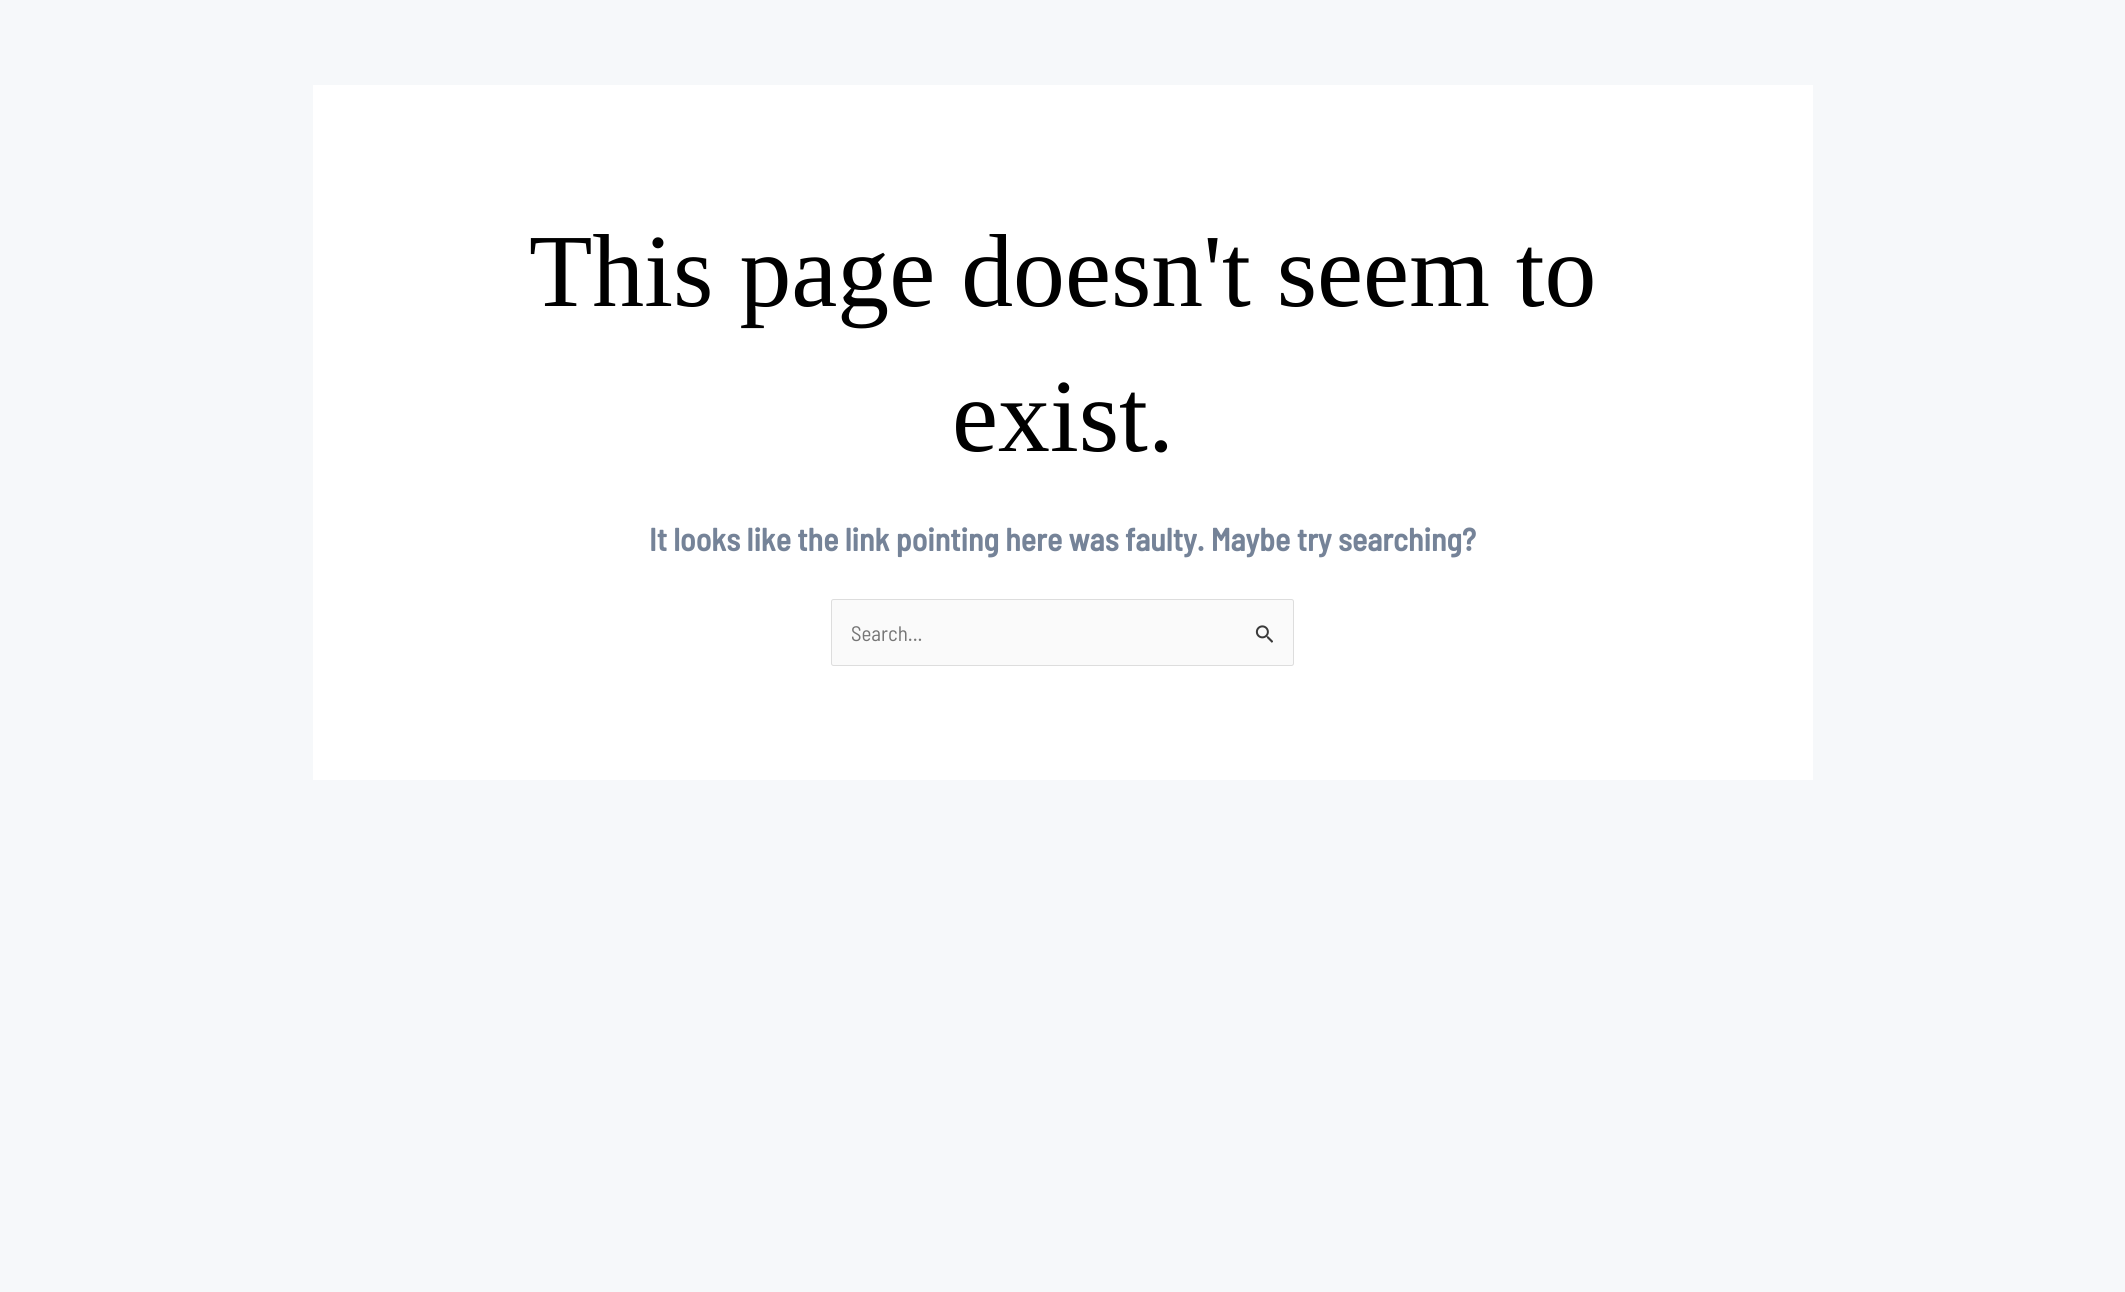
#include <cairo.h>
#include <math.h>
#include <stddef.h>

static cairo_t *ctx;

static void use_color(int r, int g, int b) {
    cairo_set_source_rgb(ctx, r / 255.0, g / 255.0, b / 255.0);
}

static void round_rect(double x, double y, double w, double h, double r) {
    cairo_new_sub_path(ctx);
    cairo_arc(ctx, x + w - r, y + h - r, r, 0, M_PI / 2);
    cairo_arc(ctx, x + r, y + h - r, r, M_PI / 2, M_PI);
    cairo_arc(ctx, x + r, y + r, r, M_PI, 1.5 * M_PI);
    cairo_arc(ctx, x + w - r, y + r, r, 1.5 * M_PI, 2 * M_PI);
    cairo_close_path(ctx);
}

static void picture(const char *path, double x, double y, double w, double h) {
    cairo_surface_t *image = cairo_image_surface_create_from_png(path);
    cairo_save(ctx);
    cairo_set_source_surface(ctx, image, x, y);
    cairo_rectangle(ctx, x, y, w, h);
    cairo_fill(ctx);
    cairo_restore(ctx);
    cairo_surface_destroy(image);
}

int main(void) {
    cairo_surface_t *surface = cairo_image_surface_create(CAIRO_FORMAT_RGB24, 2125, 1292);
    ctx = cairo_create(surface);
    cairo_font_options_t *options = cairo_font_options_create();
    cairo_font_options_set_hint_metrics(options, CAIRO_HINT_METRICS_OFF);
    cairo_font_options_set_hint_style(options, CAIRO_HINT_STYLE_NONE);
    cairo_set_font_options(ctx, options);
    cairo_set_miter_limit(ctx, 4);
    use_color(246, 248, 250);
    cairo_paint(ctx);
    use_color(255, 255, 255);
    cairo_rectangle(ctx, 313, 85, 1500, 695);
    cairo_fill(ctx);
    cairo_select_font_face(ctx, "Liberation Serif", CAIRO_FONT_SLANT_NORMAL, CAIRO_FONT_WEIGHT_NORMAL);
    cairo_set_font_size(ctx, 103.75);
    use_color(0, 0, 0);
    cairo_move_to(ctx, 529, 306);
    cairo_show_text(ctx, "This page doesn't seem to");
    cairo_move_to(ctx, 952, 451);
    cairo_show_text(ctx, "exist.");
    cairo_select_font_face(ctx, "Barlow Semi Condensed", CAIRO_FONT_SLANT_NORMAL, CAIRO_FONT_WEIGHT_BOLD);
    cairo_set_font_size(ctx, 31.9);
    use_color(117, 131, 152);
    cairo_move_to(ctx, 649, 551);
    cairo_show_text(ctx, "It looks like the link pointing here was faulty. Maybe try searching?");
    use_color(250, 250, 250);
    round_rect(831.5, 599.5, 462, 66, 2);
    cairo_fill_preserve(ctx);
    use_color(221, 221, 221);
    cairo_set_line_width(ctx, 1);
    cairo_stroke(ctx);
    cairo_select_font_face(ctx, "Barlow Semi Condensed", CAIRO_FONT_SLANT_NORMAL, CAIRO_FONT_WEIGHT_NORMAL);
    cairo_set_font_size(ctx, 21);
    use_color(117, 117, 117);
    cairo_move_to(ctx, 851, 641);
    cairo_show_text(ctx, "Search...");
    picture("img1.png", 1255, 625, 18, 18);
    cairo_surface_write_to_png(surface, "result.png");
    cairo_font_options_destroy(options);
    cairo_destroy(ctx);
    cairo_surface_destroy(surface);
    return 0;
}
